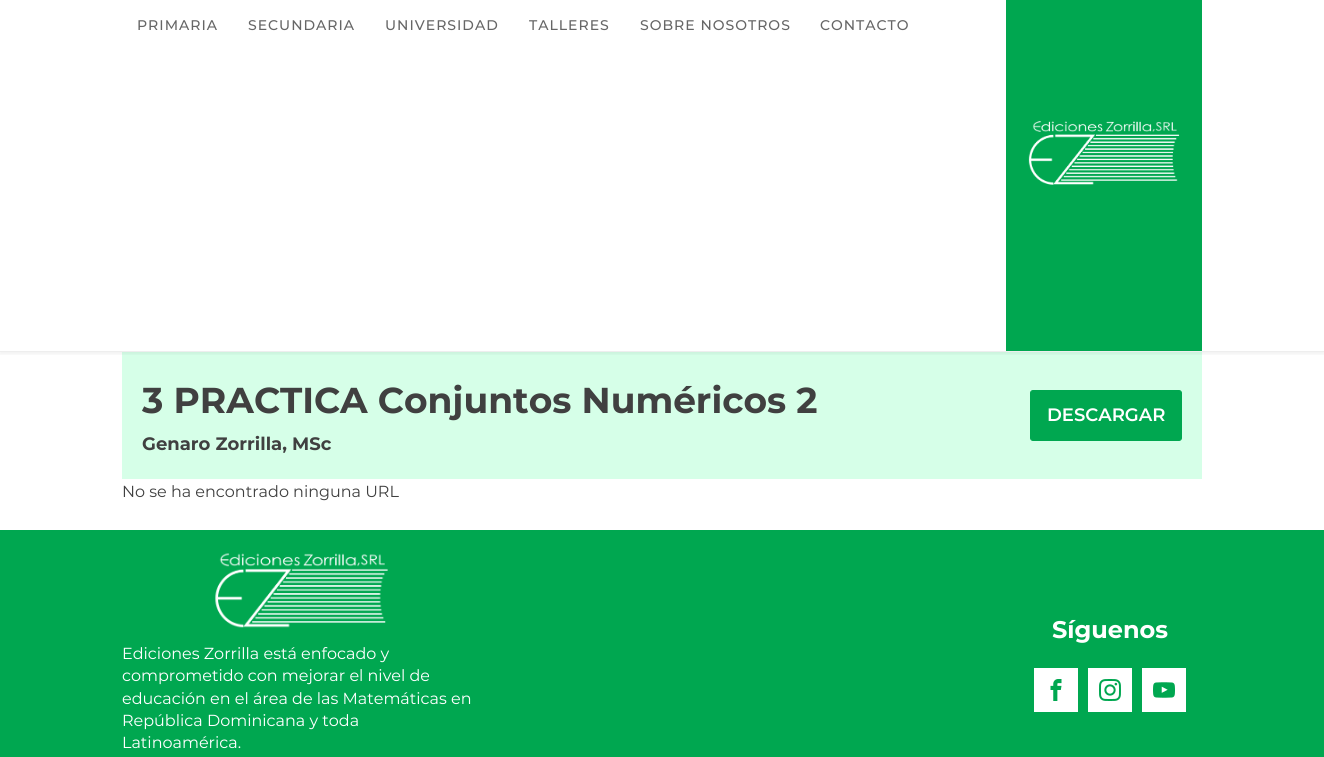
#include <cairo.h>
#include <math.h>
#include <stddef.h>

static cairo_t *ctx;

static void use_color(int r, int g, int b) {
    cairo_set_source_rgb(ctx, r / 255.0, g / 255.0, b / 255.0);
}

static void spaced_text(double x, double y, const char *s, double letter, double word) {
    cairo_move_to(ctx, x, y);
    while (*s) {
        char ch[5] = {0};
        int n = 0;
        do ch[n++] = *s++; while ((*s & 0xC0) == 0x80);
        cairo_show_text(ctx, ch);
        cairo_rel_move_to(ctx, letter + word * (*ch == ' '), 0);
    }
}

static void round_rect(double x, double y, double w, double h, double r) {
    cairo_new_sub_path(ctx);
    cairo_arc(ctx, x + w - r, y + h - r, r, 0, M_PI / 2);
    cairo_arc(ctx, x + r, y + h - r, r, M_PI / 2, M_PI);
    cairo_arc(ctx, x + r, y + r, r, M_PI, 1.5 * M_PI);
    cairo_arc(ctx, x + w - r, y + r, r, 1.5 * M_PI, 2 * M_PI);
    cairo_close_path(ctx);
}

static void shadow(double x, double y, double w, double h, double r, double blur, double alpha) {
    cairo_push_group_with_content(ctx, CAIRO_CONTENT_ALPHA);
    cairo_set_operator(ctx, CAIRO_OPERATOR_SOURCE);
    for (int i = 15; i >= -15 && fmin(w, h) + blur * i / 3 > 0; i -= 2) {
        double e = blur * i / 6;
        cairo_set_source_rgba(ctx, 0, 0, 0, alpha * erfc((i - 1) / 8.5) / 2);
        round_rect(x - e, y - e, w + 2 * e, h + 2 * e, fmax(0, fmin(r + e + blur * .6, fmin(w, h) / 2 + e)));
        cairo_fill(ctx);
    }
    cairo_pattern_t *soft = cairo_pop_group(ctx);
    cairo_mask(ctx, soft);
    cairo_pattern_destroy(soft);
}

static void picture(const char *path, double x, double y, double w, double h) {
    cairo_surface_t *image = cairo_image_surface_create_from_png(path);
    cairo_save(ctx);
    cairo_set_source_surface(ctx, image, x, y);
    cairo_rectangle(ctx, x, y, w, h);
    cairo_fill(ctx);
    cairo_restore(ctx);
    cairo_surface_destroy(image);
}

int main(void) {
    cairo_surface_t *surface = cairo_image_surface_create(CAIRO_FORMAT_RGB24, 1324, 757);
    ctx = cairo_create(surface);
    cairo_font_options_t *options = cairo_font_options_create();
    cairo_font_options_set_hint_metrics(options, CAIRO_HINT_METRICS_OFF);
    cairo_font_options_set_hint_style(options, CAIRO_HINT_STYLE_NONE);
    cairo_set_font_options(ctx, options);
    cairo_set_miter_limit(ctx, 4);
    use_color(255, 255, 255);
    cairo_paint(ctx);
    use_color(214, 255, 232);
    cairo_rectangle(ctx, 122, 352, 1080, 127);
    cairo_fill(ctx);
    cairo_save(ctx);
    cairo_rectangle(ctx, 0, 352, 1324, 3);
    cairo_clip(ctx);
    use_color(0, 0, 0);
    shadow(0, -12, 1324, 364, 0, 4, 0.1);
    cairo_restore(ctx);
    use_color(238, 238, 238);
    cairo_rectangle(ctx, 0, 351, 1324, 1);
    cairo_fill(ctx);
    cairo_select_font_face(ctx, "Montserrat Medium", CAIRO_FONT_SLANT_NORMAL, CAIRO_FONT_WEIGHT_NORMAL);
    cairo_set_font_size(ctx, 14);
    use_color(102, 102, 102);
    spaced_text(137, 30, "PRIMARIA", 1, 0);
    spaced_text(248, 30, "SECUNDARIA", 1, 0);
    spaced_text(385, 30, "UNIVERSIDAD", 1, 0);
    spaced_text(529, 30, "TALLERES", 1, 0);
    spaced_text(640, 30, "SOBRE NOSOTROS", 1, 0);
    spaced_text(820, 30, "CONTACTO", 1, 0);
    use_color(0, 167, 80);
    cairo_rectangle(ctx, 1006, 0, 196, 351);
    cairo_fill(ctx);
    picture("img1.png", 1028, 121, 152, 64);
    cairo_select_font_face(ctx, "Montserrat", CAIRO_FONT_SLANT_NORMAL, CAIRO_FONT_WEIGHT_BOLD);
    cairo_set_font_size(ctx, 36);
    use_color(64, 64, 64);
    cairo_move_to(ctx, 142, 413);
    cairo_show_text(ctx, "3 PRACTICA Conjuntos Numéricos 2");
    cairo_set_font_size(ctx, 18);
    cairo_move_to(ctx, 142, 450);
    cairo_show_text(ctx, "Genaro Zorrilla, MSc");
    use_color(0, 167, 80);
    round_rect(1030.5, 390.5, 151, 50, 2.5);
    cairo_fill_preserve(ctx);
    cairo_set_line_width(ctx, 1);
    cairo_stroke(ctx);
    cairo_select_font_face(ctx, "Montserrat SemiBold", CAIRO_FONT_SLANT_NORMAL, CAIRO_FONT_WEIGHT_NORMAL);
    use_color(255, 255, 255);
    cairo_move_to(ctx, 1047, 421);
    cairo_show_text(ctx, "DESCARGAR");
    cairo_select_font_face(ctx, "Montserrat", CAIRO_FONT_SLANT_NORMAL, CAIRO_FONT_WEIGHT_NORMAL);
    cairo_set_font_size(ctx, 16);
    use_color(64, 64, 64);
    cairo_move_to(ctx, 122, 497);
    cairo_show_text(ctx, "No se ha encontrado ninguna URL");
    use_color(0, 167, 80);
    cairo_rectangle(ctx, 0, 530, 1324, 227);
    cairo_fill(ctx);
    cairo_select_font_face(ctx, "Montserrat", CAIRO_FONT_SLANT_NORMAL, CAIRO_FONT_WEIGHT_BOLD);
    cairo_set_font_size(ctx, 24);
    use_color(255, 255, 255);
    cairo_move_to(ctx, 1052, 638);
    cairo_show_text(ctx, "Síguenos");
    cairo_rectangle(ctx, 1034, 668, 44, 44);
    cairo_fill(ctx);
    picture("img2.png", 1050, 679, 12, 22);
    cairo_rectangle(ctx, 1088, 668, 44, 44);
    cairo_fill(ctx);
    picture("img3.png", 1099, 679, 22, 22);
    cairo_rectangle(ctx, 1142, 668, 44, 44);
    cairo_fill(ctx);
    picture("img4.png", 1153, 682, 22, 16);
    picture("img5.png", 215, 553, 173, 75);
    cairo_select_font_face(ctx, "Montserrat", CAIRO_FONT_SLANT_NORMAL, CAIRO_FONT_WEIGHT_NORMAL);
    cairo_set_font_size(ctx, 16);
    cairo_move_to(ctx, 122, 659);
    cairo_show_text(ctx, "Ediciones Zorrilla está enfocado y");
    cairo_move_to(ctx, 122, 681);
    cairo_show_text(ctx, "comprometido con mejorar el nivel de");
    cairo_move_to(ctx, 122, 704);
    cairo_show_text(ctx, "educación en el área de las Matemáticas en");
    cairo_move_to(ctx, 122, 726);
    cairo_show_text(ctx, "República Dominicana y toda");
    cairo_move_to(ctx, 122, 748);
    cairo_show_text(ctx, "Latinoamérica.");
    cairo_surface_write_to_png(surface, "result.png");
    cairo_font_options_destroy(options);
    cairo_destroy(ctx);
    cairo_surface_destroy(surface);
    return 0;
}
